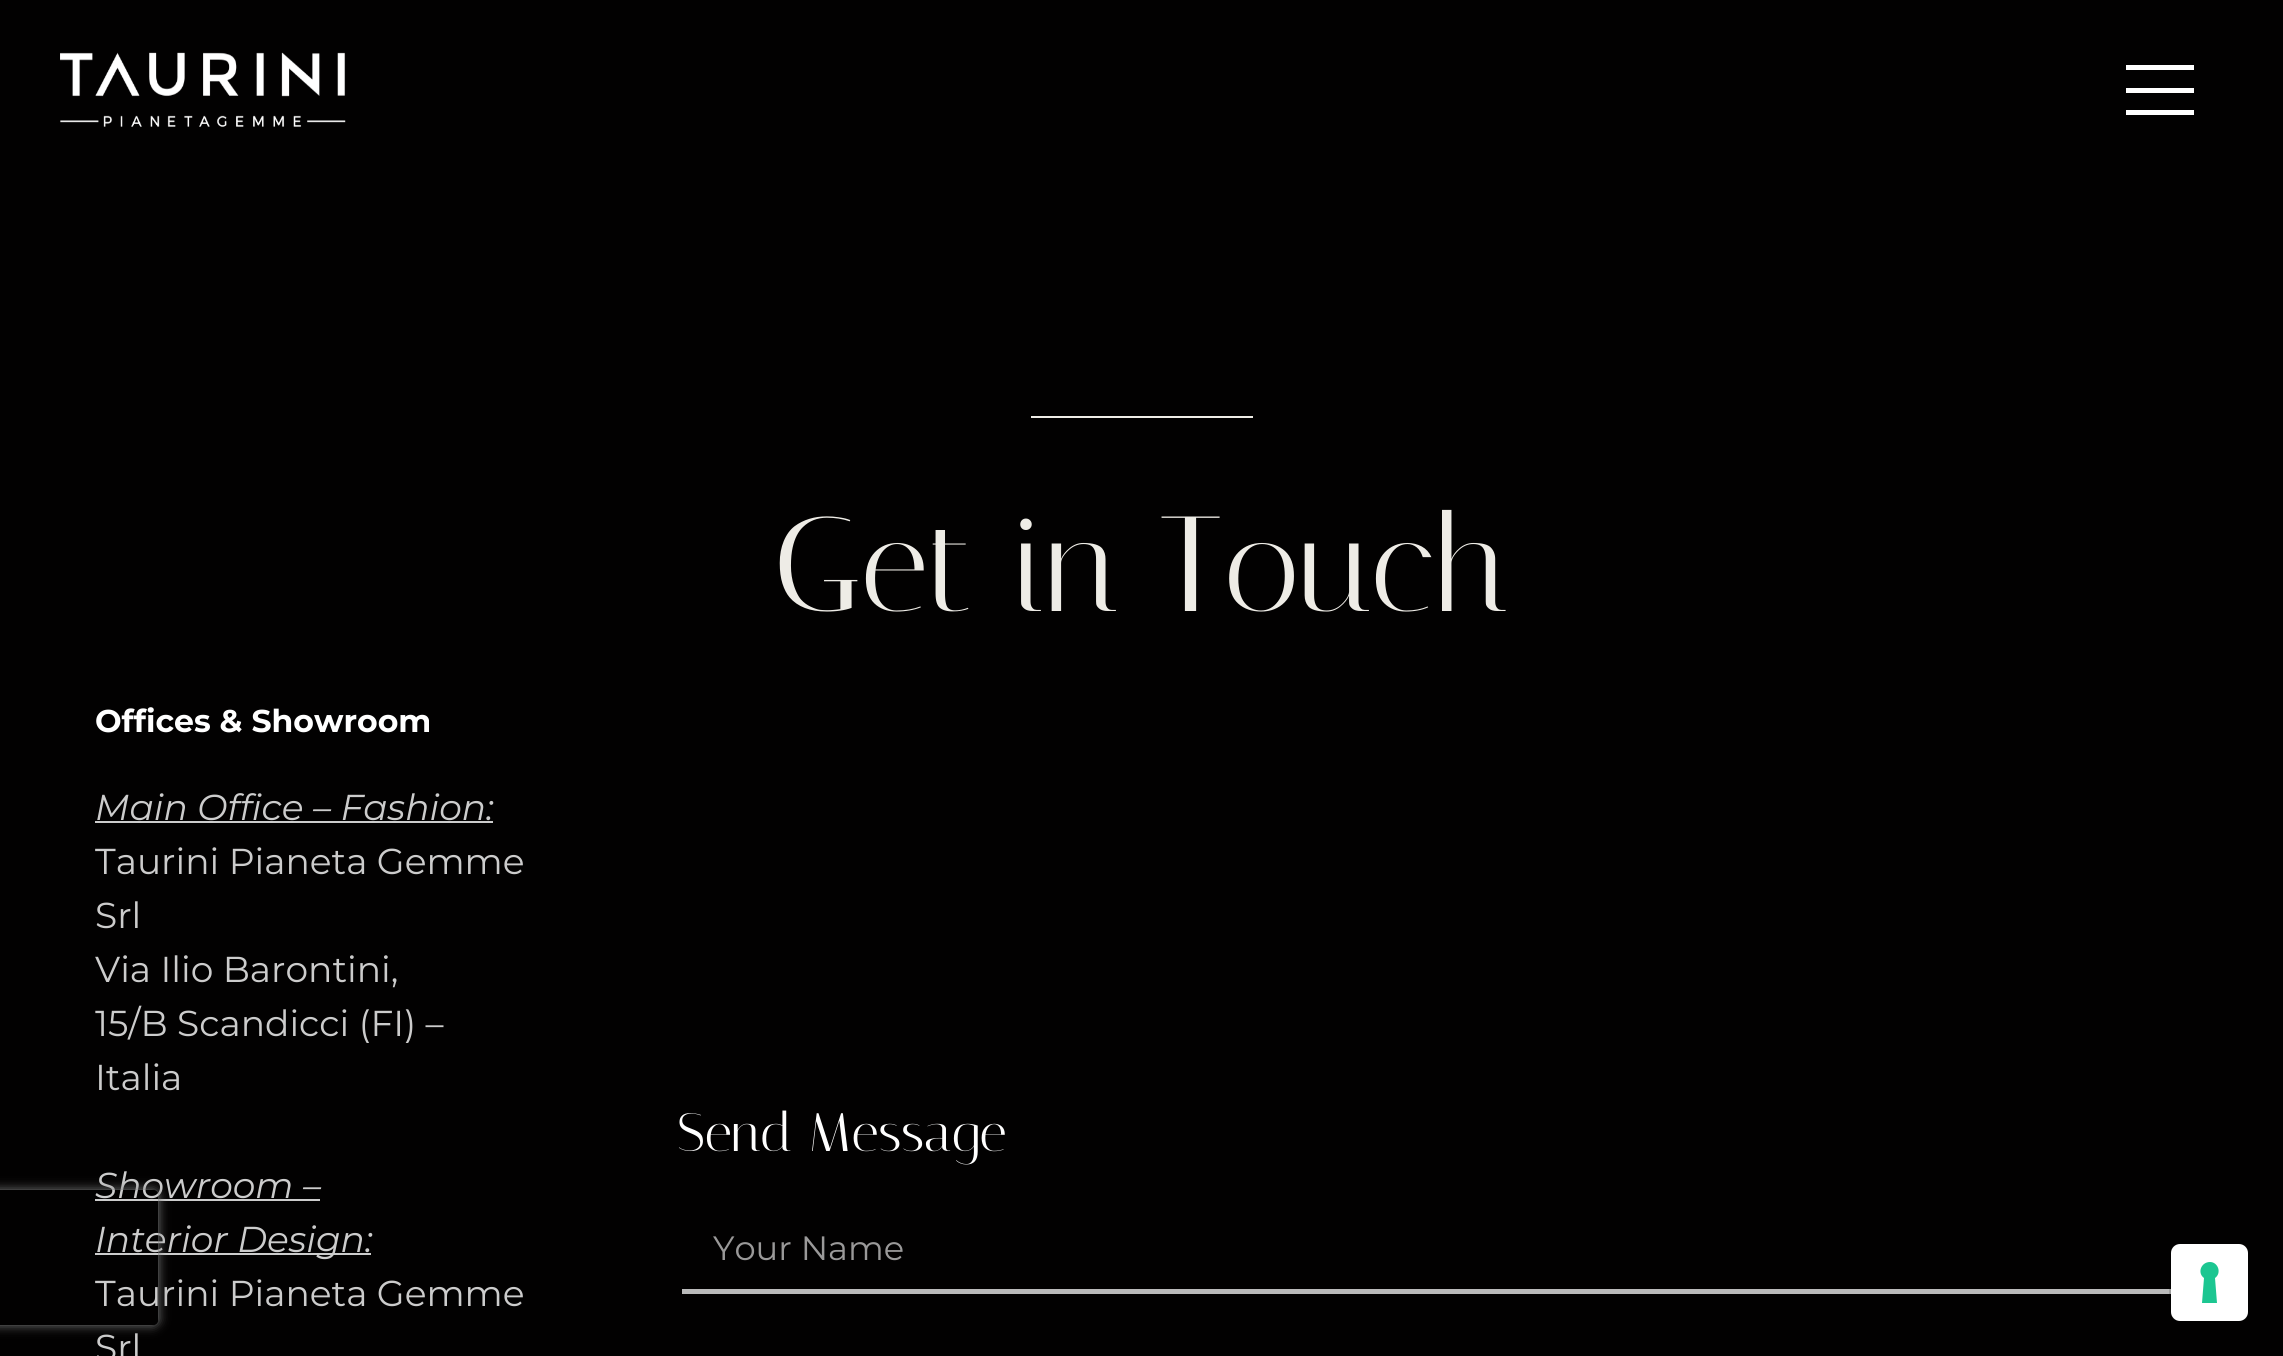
#include <cairo.h>
#include <math.h>
#include <stddef.h>

static cairo_t *ctx;

static void use_color(int r, int g, int b) {
    cairo_set_source_rgb(ctx, r / 255.0, g / 255.0, b / 255.0);
}

static void round_rect(double x, double y, double w, double h, double r) {
    cairo_new_sub_path(ctx);
    cairo_arc(ctx, x + w - r, y + h - r, r, 0, M_PI / 2);
    cairo_arc(ctx, x + r, y + h - r, r, M_PI / 2, M_PI);
    cairo_arc(ctx, x + r, y + r, r, M_PI, 1.5 * M_PI);
    cairo_arc(ctx, x + w - r, y + r, r, 1.5 * M_PI, 2 * M_PI);
    cairo_close_path(ctx);
}

static void shadow(double x, double y, double w, double h, double r, double blur, double alpha) {
    cairo_push_group_with_content(ctx, CAIRO_CONTENT_ALPHA);
    cairo_set_operator(ctx, CAIRO_OPERATOR_SOURCE);
    for (int i = 15; i >= -15 && fmin(w, h) + blur * i / 3 > 0; i -= 2) {
        double e = blur * i / 6;
        cairo_set_source_rgba(ctx, 0, 0, 0, alpha * erfc((i - 1) / 8.5) / 2);
        round_rect(x - e, y - e, w + 2 * e, h + 2 * e, fmax(0, fmin(r + e + blur * .6, fmin(w, h) / 2 + e)));
        cairo_fill(ctx);
    }
    cairo_pattern_t *soft = cairo_pop_group(ctx);
    cairo_mask(ctx, soft);
    cairo_pattern_destroy(soft);
}

static void picture(const char *path, double x, double y, double w, double h) {
    cairo_surface_t *image = cairo_image_surface_create_from_png(path);
    cairo_save(ctx);
    cairo_set_source_surface(ctx, image, x, y);
    cairo_rectangle(ctx, x, y, w, h);
    cairo_fill(ctx);
    cairo_restore(ctx);
    cairo_surface_destroy(image);
}

int main(void) {
    cairo_surface_t *surface = cairo_image_surface_create(CAIRO_FORMAT_RGB24, 2283, 1356);
    ctx = cairo_create(surface);
    cairo_font_options_t *options = cairo_font_options_create();
    cairo_font_options_set_hint_metrics(options, CAIRO_HINT_METRICS_OFF);
    cairo_font_options_set_hint_style(options, CAIRO_HINT_STYLE_NONE);
    cairo_set_font_options(ctx, options);
    cairo_set_miter_limit(ctx, 4);
    use_color(2, 1, 1);
    cairo_paint(ctx);
    picture("img1.png", 60, 52, 286, 75);
    use_color(255, 255, 255);
    cairo_rectangle(ctx, 2126, 88, 68, 5);
    cairo_fill(ctx);
    cairo_rectangle(ctx, 2126, 65, 68, 5);
    cairo_fill(ctx);
    cairo_rectangle(ctx, 2126, 110, 68, 5);
    cairo_fill(ctx);
    use_color(238, 236, 230);
    cairo_rectangle(ctx, 1031, 416, 222, 2);
    cairo_fill(ctx);
    cairo_select_font_face(ctx, "Italiana", CAIRO_FONT_SLANT_NORMAL, CAIRO_FONT_WEIGHT_NORMAL);
    cairo_set_font_size(ctx, 135);
    cairo_move_to(ctx, 773, 611);
    cairo_show_text(ctx, "Get in Touch");
    cairo_select_font_face(ctx, "Montserrat", CAIRO_FONT_SLANT_NORMAL, CAIRO_FONT_WEIGHT_BOLD);
    cairo_set_font_size(ctx, 31.5);
    use_color(255, 255, 255);
    cairo_move_to(ctx, 95, 732);
    cairo_show_text(ctx, "Offices & Showroom");
    cairo_select_font_face(ctx, "Montserrat", CAIRO_FONT_SLANT_ITALIC, CAIRO_FONT_WEIGHT_NORMAL);
    cairo_set_font_size(ctx, 36);
    use_color(204, 204, 204);
    cairo_move_to(ctx, 95, 820);
    cairo_show_text(ctx, "Main Office – Fashion:");
    cairo_rectangle(ctx, 95, 821, 398, 2);
    cairo_fill(ctx);
    cairo_select_font_face(ctx, "Montserrat", CAIRO_FONT_SLANT_NORMAL, CAIRO_FONT_WEIGHT_NORMAL);
    cairo_move_to(ctx, 95, 874);
    cairo_show_text(ctx, "Taurini Pianeta Gemme");
    cairo_move_to(ctx, 95, 928);
    cairo_show_text(ctx, "Srl");
    cairo_move_to(ctx, 95, 982);
    cairo_show_text(ctx, "Via Ilio Barontini,");
    cairo_move_to(ctx, 95, 1036);
    cairo_show_text(ctx, "15/B Scandicci (FI) –");
    cairo_move_to(ctx, 95, 1090);
    cairo_show_text(ctx, "Italia");
    cairo_select_font_face(ctx, "Montserrat", CAIRO_FONT_SLANT_ITALIC, CAIRO_FONT_WEIGHT_NORMAL);
    cairo_move_to(ctx, 95, 1198);
    cairo_show_text(ctx, "Showroom –");
    cairo_rectangle(ctx, 95, 1199, 225, 2);
    cairo_fill(ctx);
    cairo_rectangle(ctx, 95, 1253, 276, 2);
    cairo_fill(ctx);
    cairo_move_to(ctx, 95, 1252);
    cairo_show_text(ctx, "Interior Design:");
    cairo_select_font_face(ctx, "Montserrat", CAIRO_FONT_SLANT_NORMAL, CAIRO_FONT_WEIGHT_NORMAL);
    cairo_move_to(ctx, 95, 1306);
    cairo_show_text(ctx, "Taurini Pianeta Gemme");
    cairo_move_to(ctx, 95, 1360);
    cairo_show_text(ctx, "Srl");
    cairo_select_font_face(ctx, "Italiana", CAIRO_FONT_SLANT_NORMAL, CAIRO_FONT_WEIGHT_NORMAL);
    cairo_set_font_size(ctx, 54);
    use_color(255, 255, 255);
    cairo_move_to(ctx, 677, 1151);
    cairo_show_text(ctx, "Send Message");
    cairo_save(ctx);
    cairo_set_fill_rule(ctx, CAIRO_FILL_RULE_EVEN_ODD);
    cairo_new_path(ctx);
    cairo_move_to(ctx, 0, 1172);
    cairo_line_to(ctx, 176, 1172);
    cairo_line_to(ctx, 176, 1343);
    cairo_line_to(ctx, 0, 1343);
    cairo_close_path(ctx);
    cairo_move_to(ctx, -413, 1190);
    cairo_line_to(ctx, 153, 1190);
    cairo_curve_to(ctx, 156, 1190, 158, 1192, 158, 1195);
    cairo_line_to(ctx, 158, 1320);
    cairo_curve_to(ctx, 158, 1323, 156, 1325, 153, 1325);
    cairo_line_to(ctx, -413, 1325);
    cairo_curve_to(ctx, -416, 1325, -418, 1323, -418, 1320);
    cairo_line_to(ctx, -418, 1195);
    cairo_curve_to(ctx, -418, 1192, -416, 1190, -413, 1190);
    cairo_close_path(ctx);
    cairo_clip(ctx);
    use_color(128, 128, 128);
    shadow(-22, 1190, 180, 135, 5, 5.5, 1);
    cairo_restore(ctx);
    use_color(186, 186, 186);
    cairo_rectangle(ctx, 682, 1289, 1489, 5);
    cairo_fill(ctx);
    cairo_select_font_face(ctx, "Montserrat", CAIRO_FONT_SLANT_NORMAL, CAIRO_FONT_WEIGHT_NORMAL);
    cairo_set_font_size(ctx, 33.75);
    use_color(154, 153, 153);
    cairo_move_to(ctx, 713, 1260);
    cairo_show_text(ctx, "Your Name");
    round_rect(2170, 1243, 79, 79, 10);
    cairo_set_source_rgba(ctx, 0, 0, 0, 0.15);
    cairo_stroke(ctx);
    use_color(255, 255, 255);
    round_rect(2171, 1244, 77, 77, 9);
    cairo_fill(ctx);
    use_color(28, 198, 145);
    cairo_set_fill_rule(ctx, CAIRO_FILL_RULE_EVEN_ODD);
    cairo_new_path(ctx);
    cairo_move_to(ctx, 2210, 1262);
    cairo_curve_to(ctx, 2218, 1262, 2222, 1273, 2215, 1278);
    cairo_line_to(ctx, 2217, 1303);
    cairo_line_to(ctx, 2202, 1303);
    cairo_line_to(ctx, 2204, 1278);
    cairo_curve_to(ctx, 2197, 1273, 2201, 1262, 2210, 1262);
    cairo_close_path(ctx);
    cairo_fill(ctx);
    cairo_surface_write_to_png(surface, "result.png");
    cairo_font_options_destroy(options);
    cairo_destroy(ctx);
    cairo_surface_destroy(surface);
    return 0;
}
